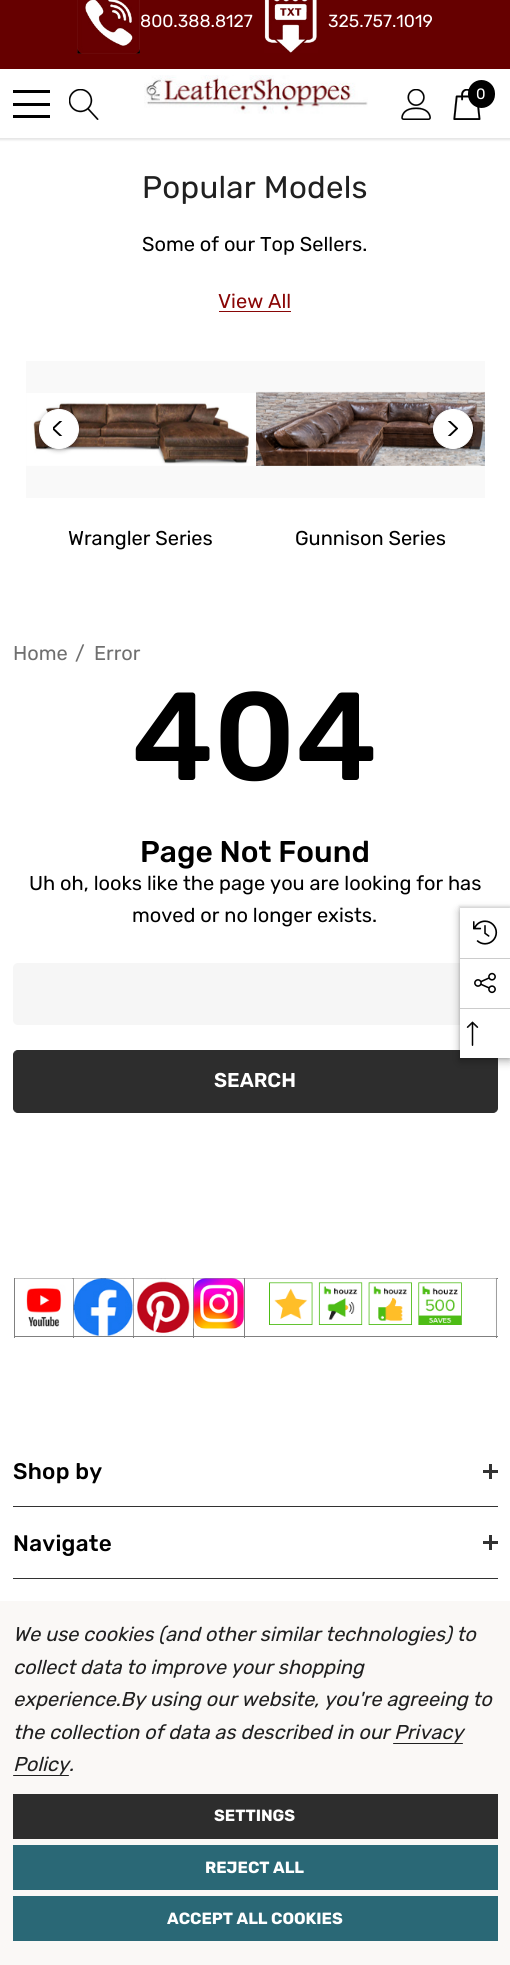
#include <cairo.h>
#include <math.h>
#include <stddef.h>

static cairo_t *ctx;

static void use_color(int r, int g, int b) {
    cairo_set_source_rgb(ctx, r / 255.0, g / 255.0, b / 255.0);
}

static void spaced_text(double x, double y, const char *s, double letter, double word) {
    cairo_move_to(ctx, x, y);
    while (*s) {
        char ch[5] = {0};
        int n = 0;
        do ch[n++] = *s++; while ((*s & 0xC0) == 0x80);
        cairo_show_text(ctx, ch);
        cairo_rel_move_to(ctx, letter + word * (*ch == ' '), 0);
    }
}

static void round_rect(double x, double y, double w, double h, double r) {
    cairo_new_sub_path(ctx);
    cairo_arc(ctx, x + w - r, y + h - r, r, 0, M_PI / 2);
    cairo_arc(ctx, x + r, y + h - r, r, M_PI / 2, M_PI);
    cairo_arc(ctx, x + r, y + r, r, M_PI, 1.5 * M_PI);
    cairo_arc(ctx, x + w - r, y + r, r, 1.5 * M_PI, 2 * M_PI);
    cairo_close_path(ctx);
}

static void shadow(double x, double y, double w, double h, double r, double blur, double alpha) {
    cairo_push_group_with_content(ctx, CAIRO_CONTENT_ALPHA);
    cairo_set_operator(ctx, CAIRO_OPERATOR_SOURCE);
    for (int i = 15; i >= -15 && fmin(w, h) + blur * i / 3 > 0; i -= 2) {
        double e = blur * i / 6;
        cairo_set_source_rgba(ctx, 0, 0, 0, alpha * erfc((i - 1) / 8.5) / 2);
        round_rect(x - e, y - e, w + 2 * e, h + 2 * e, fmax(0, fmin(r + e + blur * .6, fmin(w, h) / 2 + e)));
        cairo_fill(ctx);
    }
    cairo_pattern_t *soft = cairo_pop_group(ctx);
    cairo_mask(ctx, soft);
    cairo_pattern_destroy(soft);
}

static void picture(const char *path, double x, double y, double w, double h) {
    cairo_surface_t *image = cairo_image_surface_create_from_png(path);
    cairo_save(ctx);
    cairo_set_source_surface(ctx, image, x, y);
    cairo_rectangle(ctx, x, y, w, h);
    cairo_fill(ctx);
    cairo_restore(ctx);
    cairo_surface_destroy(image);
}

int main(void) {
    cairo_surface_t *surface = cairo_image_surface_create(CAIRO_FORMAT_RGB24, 510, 1965);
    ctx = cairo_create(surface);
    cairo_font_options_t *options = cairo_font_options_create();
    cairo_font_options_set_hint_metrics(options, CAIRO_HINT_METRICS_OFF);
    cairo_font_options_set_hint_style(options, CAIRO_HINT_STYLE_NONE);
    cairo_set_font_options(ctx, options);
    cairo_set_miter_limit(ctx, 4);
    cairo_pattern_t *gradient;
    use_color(255, 255, 255);
    cairo_paint(ctx);
    use_color(229, 229, 229);
    shadow(-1, -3, 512, 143, 0, 1, 1);
    use_color(255, 255, 255);
    cairo_rectangle(ctx, 0, 69, 510, 69);
    cairo_fill(ctx);
    use_color(102, 0, 0);
    cairo_rectangle(ctx, 0, 0, 510, 69);
    cairo_fill(ctx);
    picture("img1.png", 77, 0, 63, 54);
    cairo_select_font_face(ctx, "Rubik", CAIRO_FONT_SLANT_NORMAL, CAIRO_FONT_WEIGHT_NORMAL);
    cairo_set_font_size(ctx, 17.5);
    use_color(255, 255, 255);
    cairo_move_to(ctx, 140, 27);
    cairo_show_text(ctx, "800.388.8127");
    picture("img2.png", 264, 0, 54, 53);
    cairo_move_to(ctx, 328, 27);
    cairo_show_text(ctx, "325.757.1019");
    use_color(0, 0, 0);
    cairo_rectangle(ctx, 13, 103, 37, 3);
    cairo_fill(ctx);
    cairo_rectangle(ctx, 13, 90, 37, 3);
    cairo_fill(ctx);
    cairo_rectangle(ctx, 13, 115, 37, 3);
    cairo_fill(ctx);
    picture("img3.png", 69, 89, 30, 31);
    picture("img4.png", 144, 75, 224, 39);
    picture("img5.png", 401, 89, 30, 31);
    picture("img6.png", 453, 89, 28, 31);
    round_rect(468, 80, 27, 28, 13.5);
    cairo_fill(ctx);
    cairo_set_font_size(ctx, 15);
    use_color(255, 255, 255);
    cairo_move_to(ctx, 476, 99);
    cairo_show_text(ctx, "0");
    cairo_set_font_size(ctx, 31.25);
    use_color(32, 32, 32);
    spaced_text(142, 198, "Popular Models", 0.25, 0);
    cairo_set_font_size(ctx, 20);
    use_color(0, 0, 0);
    cairo_move_to(ctx, 142, 251);
    cairo_show_text(ctx, "Some of our Top Sellers.");
    use_color(137, 6, 6);
    cairo_move_to(ctx, 218, 308);
    cairo_show_text(ctx, "View All");
    cairo_rectangle(ctx, 219, 311, 72, 1);
    cairo_fill(ctx);
    use_color(249, 249, 249);
    cairo_rectangle(ctx, 26, 361, 459, 137);
    cairo_fill(ctx);
    picture("img7.png", 26, 393, 230, 73);
    use_color(0, 0, 0);
    shadow(39, 410, 40, 40, 20, 2.5, 0.3);
    use_color(255, 255, 255);
    cairo_arc(ctx, 59, 429, 19.5, 0, 2 * M_PI);
    cairo_fill_preserve(ctx);
    cairo_set_line_width(ctx, 1);
    cairo_stroke(ctx);
    cairo_save(ctx);
    cairo_rectangle(ctx, 53, 421, 11, 15);
    cairo_clip(ctx);
    cairo_new_path(ctx);
    cairo_move_to(ctx, 63, 419);
    cairo_line_to(ctx, 53, 428.5);
    cairo_line_to(ctx, 63, 438);
    use_color(0, 0, 0);
    cairo_set_line_width(ctx, 1.9);
    cairo_stroke(ctx);
    cairo_restore(ctx);
    picture("img8.png", 256, 391, 229, 75);
    use_color(0, 0, 0);
    shadow(433, 410, 40, 40, 20, 2.5, 0.3);
    use_color(255, 255, 255);
    cairo_arc(ctx, 453, 429, 19.5, 0, 2 * M_PI);
    cairo_fill_preserve(ctx);
    cairo_stroke(ctx);
    cairo_save(ctx);
    cairo_rectangle(ctx, 446, 421, 12, 15);
    cairo_clip(ctx);
    cairo_new_path(ctx);
    cairo_move_to(ctx, 447, 419);
    cairo_line_to(ctx, 457, 428.5);
    cairo_line_to(ctx, 447, 438);
    use_color(0, 0, 0);
    cairo_set_line_width(ctx, 1.9);
    cairo_stroke(ctx);
    cairo_restore(ctx);
    use_color(0, 0, 0);
    cairo_move_to(ctx, 68, 545);
    cairo_show_text(ctx, "Wrangler Series");
    cairo_move_to(ctx, 295, 545);
    cairo_show_text(ctx, "Gunnison Series");
    use_color(111, 111, 111);
    cairo_move_to(ctx, 13, 660);
    cairo_show_text(ctx, "Home");
    cairo_move_to(ctx, 75, 660);
    cairo_show_text(ctx, "/");
    cairo_move_to(ctx, 94, 660);
    cairo_show_text(ctx, "Error");
    gradient = cairo_pattern_create_linear(0, 656, 15, 656);
    cairo_pattern_add_color_stop_rgba(gradient, 0, 1, 1, 1, 1);
    cairo_pattern_add_color_stop_rgba(gradient, 1, 1, 1, 1, 0.1);
    cairo_set_source(ctx, gradient);
    cairo_pattern_destroy(gradient);
    cairo_rectangle(ctx, 14, 646, 1, 14);
    cairo_fill(ctx);
    cairo_select_font_face(ctx, "Rubik Medium", CAIRO_FONT_SLANT_NORMAL, CAIRO_FONT_WEIGHT_NORMAL);
    cairo_set_font_size(ctx, 125);
    use_color(0, 0, 0);
    cairo_move_to(ctx, 132, 780);
    cairo_show_text(ctx, "404");
    cairo_set_font_size(ctx, 30);
    cairo_move_to(ctx, 140, 862);
    cairo_show_text(ctx, "Page Not Found");
    cairo_select_font_face(ctx, "Rubik", CAIRO_FONT_SLANT_NORMAL, CAIRO_FONT_WEIGHT_NORMAL);
    cairo_set_font_size(ctx, 20);
    cairo_move_to(ctx, 29, 890);
    cairo_show_text(ctx, "Uh oh, looks like the page you are looking for has");
    cairo_move_to(ctx, 132, 922);
    cairo_show_text(ctx, "moved or no longer exists.");
    use_color(246, 246, 246);
    round_rect(13, 963, 485, 62, 5);
    cairo_fill(ctx);
    use_color(45, 45, 45);
    round_rect(13.5, 1050.5, 484, 62, 4.5);
    cairo_fill_preserve(ctx);
    cairo_stroke(ctx);
    cairo_select_font_face(ctx, "Rubik SemiBold", CAIRO_FONT_SLANT_NORMAL, CAIRO_FONT_WEIGHT_NORMAL);
    use_color(255, 255, 255);
    cairo_move_to(ctx, 214, 1087);
    cairo_show_text(ctx, "SEARCH");
    use_color(0, 0, 0);
    shadow(460, 911, 50, 150, 0, 4.5, 0.3);
    shadow(459, 906, 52, 153, 0, 1, 0.1);
    use_color(255, 255, 255);
    cairo_rectangle(ctx, 460, 908, 50, 150);
    cairo_fill(ctx);
    picture("img9.png", 473, 920, 25, 25);
    use_color(204, 204, 204);
    cairo_rectangle(ctx, 460, 958, 50, 1);
    cairo_fill(ctx);
    picture("img10.png", 474, 972, 22, 22);
    cairo_rectangle(ctx, 460, 1008, 50, 1);
    cairo_fill(ctx);
    picture("img11.png", 466, 1021, 13, 25);
    use_color(128, 128, 128);
    cairo_rectangle(ctx, 14, 1278, 484, 1);
    cairo_fill(ctx);
    cairo_rectangle(ctx, 496, 1278, 1, 60);
    cairo_fill(ctx);
    cairo_rectangle(ctx, 14, 1336, 484, 1);
    cairo_fill(ctx);
    cairo_rectangle(ctx, 14, 1278, 1, 60);
    cairo_fill(ctx);
    picture("img12.png", 15, 1278, 58, 49);
    cairo_rectangle(ctx, 73, 1278, 1, 60);
    cairo_fill(ctx);
    picture("img13.png", 73, 1278, 60, 58);
    cairo_rectangle(ctx, 133, 1278, 1, 60);
    cairo_fill(ctx);
    picture("img14.png", 133, 1278, 60, 58);
    cairo_rectangle(ctx, 193, 1278, 1, 60);
    cairo_fill(ctx);
    picture("img15.png", 193, 1278, 51, 51);
    cairo_rectangle(ctx, 244, 1278, 1, 60);
    cairo_fill(ctx);
    picture("img16.png", 245, 1278, 252, 58);
    use_color(50, 50, 50);
    cairo_rectangle(ctx, 13, 1506, 485, 1);
    cairo_fill(ctx);
    cairo_select_font_face(ctx, "Rubik Medium", CAIRO_FONT_SLANT_NORMAL, CAIRO_FONT_WEIGHT_NORMAL);
    cairo_set_font_size(ctx, 22.5);
    use_color(0, 0, 0);
    spaced_text(13, 1479, "Shop by", 0.25, 0);
    use_color(50, 50, 50);
    cairo_rectangle(ctx, 489, 1464, 3, 15);
    cairo_fill(ctx);
    cairo_rectangle(ctx, 483, 1470, 15, 3);
    cairo_fill(ctx);
    cairo_rectangle(ctx, 13, 1578, 485, 1);
    cairo_fill(ctx);
    use_color(0, 0, 0);
    spaced_text(13, 1551, "Navigate", 0.25, 0);
    use_color(50, 50, 50);
    cairo_rectangle(ctx, 489, 1535, 3, 15);
    cairo_fill(ctx);
    cairo_rectangle(ctx, 483, 1541, 15, 3);
    cairo_fill(ctx);
    use_color(250, 248, 246);
    cairo_rectangle(ctx, 0, 1601, 510, 364);
    cairo_fill(ctx);
    cairo_select_font_face(ctx, "Rubik", CAIRO_FONT_SLANT_ITALIC, CAIRO_FONT_WEIGHT_NORMAL);
    cairo_set_font_size(ctx, 20);
    use_color(32, 32, 32);
    spaced_text(13, 1641, "We use cookies (and other similar technologies) to", -0.05, 0);
    spaced_text(13, 1674, "collect data to improve your shopping", -0.05, 0);
    spaced_text(13, 1706, "experience.By using our website, you're agreeing to", -0.05, 0);
    spaced_text(13, 1739, "the collection of data as described in our Privacy", -0.05, 0);
    round_rect(393, 1743, 70, 1, 0.5);
    cairo_fill(ctx);
    spaced_text(13, 1771, "Policy.", -0.05, 0);
    round_rect(13, 1775, 56, 1, 0.5);
    cairo_fill(ctx);
    use_color(45, 45, 45);
    cairo_rectangle(ctx, 13, 1794, 485, 45);
    cairo_fill(ctx);
    cairo_select_font_face(ctx, "Rubik", CAIRO_FONT_SLANT_NORMAL, CAIRO_FONT_WEIGHT_BOLD);
    cairo_set_font_size(ctx, 16.25);
    use_color(255, 255, 255);
    cairo_move_to(ctx, 214, 1821);
    cairo_show_text(ctx, "SETTINGS");
    use_color(42, 104, 118);
    cairo_rectangle(ctx, 13, 1845, 485, 45);
    cairo_fill(ctx);
    use_color(255, 255, 255);
    cairo_move_to(ctx, 205, 1873);
    cairo_show_text(ctx, "REJECT ALL");
    use_color(42, 104, 118);
    cairo_rectangle(ctx, 13, 1896, 485, 45);
    cairo_fill(ctx);
    use_color(255, 255, 255);
    cairo_move_to(ctx, 167, 1924);
    cairo_show_text(ctx, "ACCEPT ALL COOKIES");
    cairo_surface_write_to_png(surface, "result.png");
    cairo_font_options_destroy(options);
    cairo_destroy(ctx);
    cairo_surface_destroy(surface);
    return 0;
}
